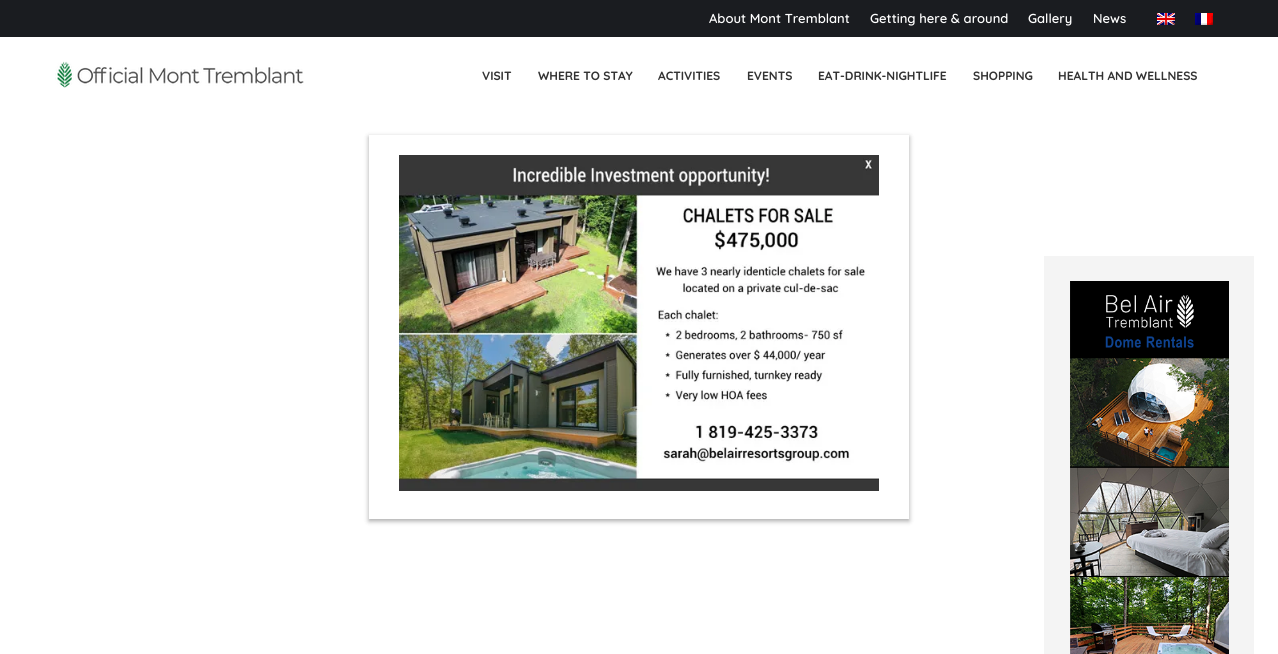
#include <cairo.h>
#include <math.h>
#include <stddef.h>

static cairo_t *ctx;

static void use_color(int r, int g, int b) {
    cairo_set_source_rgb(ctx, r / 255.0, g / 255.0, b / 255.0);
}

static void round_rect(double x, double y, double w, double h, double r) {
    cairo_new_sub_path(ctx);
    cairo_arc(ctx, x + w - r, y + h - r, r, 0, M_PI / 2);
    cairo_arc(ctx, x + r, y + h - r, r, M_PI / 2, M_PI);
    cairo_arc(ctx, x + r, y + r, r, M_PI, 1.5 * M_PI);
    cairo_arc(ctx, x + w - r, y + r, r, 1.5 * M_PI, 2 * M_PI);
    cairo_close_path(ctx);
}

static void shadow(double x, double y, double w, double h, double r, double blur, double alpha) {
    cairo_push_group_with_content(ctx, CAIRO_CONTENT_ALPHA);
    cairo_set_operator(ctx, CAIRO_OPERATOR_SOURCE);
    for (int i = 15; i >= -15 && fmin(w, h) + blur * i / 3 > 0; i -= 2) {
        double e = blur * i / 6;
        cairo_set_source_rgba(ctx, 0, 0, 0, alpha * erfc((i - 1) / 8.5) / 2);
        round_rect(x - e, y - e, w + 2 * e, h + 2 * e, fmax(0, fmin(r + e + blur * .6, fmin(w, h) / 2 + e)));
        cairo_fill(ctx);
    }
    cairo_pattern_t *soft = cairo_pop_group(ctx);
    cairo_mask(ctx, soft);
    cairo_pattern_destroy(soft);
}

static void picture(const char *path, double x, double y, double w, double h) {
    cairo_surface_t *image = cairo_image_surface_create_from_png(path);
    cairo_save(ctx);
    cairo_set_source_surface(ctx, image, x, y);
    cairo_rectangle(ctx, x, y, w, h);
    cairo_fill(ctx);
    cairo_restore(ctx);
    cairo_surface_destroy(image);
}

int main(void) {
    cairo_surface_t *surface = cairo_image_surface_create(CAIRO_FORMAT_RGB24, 1278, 654);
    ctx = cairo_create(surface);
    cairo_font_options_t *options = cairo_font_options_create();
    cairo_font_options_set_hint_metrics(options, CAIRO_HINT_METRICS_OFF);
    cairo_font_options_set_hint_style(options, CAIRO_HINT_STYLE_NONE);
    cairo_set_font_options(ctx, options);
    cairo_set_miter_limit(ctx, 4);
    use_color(255, 255, 255);
    cairo_paint(ctx);
    use_color(26, 28, 32);
    cairo_rectangle(ctx, 0, 0, 1278, 37);
    cairo_fill(ctx);
    cairo_select_font_face(ctx, "Quicksand SemiBold", CAIRO_FONT_SLANT_NORMAL, CAIRO_FONT_WEIGHT_NORMAL);
    cairo_set_font_size(ctx, 13);
    use_color(255, 255, 255);
    cairo_move_to(ctx, 709, 23);
    cairo_show_text(ctx, "About Mont Tremblant");
    cairo_move_to(ctx, 870, 23);
    cairo_show_text(ctx, "Getting here & around");
    cairo_move_to(ctx, 1028, 23);
    cairo_show_text(ctx, "Gallery");
    cairo_move_to(ctx, 1093, 23);
    cairo_show_text(ctx, "News");
    picture("img1.png", 1157, 13, 18, 12);
    picture("img2.png", 1195, 13, 18, 12);
    picture("img3.png", 55, 61, 249, 27);
    cairo_select_font_face(ctx, "Quicksand", CAIRO_FONT_SLANT_NORMAL, CAIRO_FONT_WEIGHT_BOLD);
    cairo_set_font_size(ctx, 12);
    use_color(51, 51, 51);
    cairo_move_to(ctx, 482, 80);
    cairo_show_text(ctx, "VISIT");
    cairo_move_to(ctx, 538, 80);
    cairo_show_text(ctx, "WHERE TO STAY");
    cairo_move_to(ctx, 658, 80);
    cairo_show_text(ctx, "ACTIVITIES");
    cairo_move_to(ctx, 747, 80);
    cairo_show_text(ctx, "EVENTS");
    cairo_move_to(ctx, 818, 80);
    cairo_show_text(ctx, "EAT-DRINK-NIGHTLIFE");
    cairo_move_to(ctx, 973, 80);
    cairo_show_text(ctx, "SHOPPING");
    cairo_move_to(ctx, 1058, 80);
    cairo_show_text(ctx, "HEALTH AND WELLNESS");
    use_color(244, 244, 244);
    cairo_rectangle(ctx, 1044, 256, 210, 398);
    cairo_fill(ctx);
    picture("img4.png", 1070, 281, 159, 373);
    cairo_save(ctx);
    cairo_set_fill_rule(ctx, CAIRO_FILL_RULE_EVEN_ODD);
    cairo_new_path(ctx);
    cairo_move_to(ctx, 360, 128);
    cairo_line_to(ctx, 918, 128);
    cairo_line_to(ctx, 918, 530);
    cairo_line_to(ctx, 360, 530);
    cairo_close_path(ctx);
    cairo_move_to(ctx, 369, 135);
    cairo_line_to(ctx, 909, 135);
    cairo_line_to(ctx, 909, 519);
    cairo_line_to(ctx, 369, 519);
    cairo_close_path(ctx);
    cairo_clip(ctx);
    use_color(0, 0, 0);
    shadow(369, 137, 540, 384, 0, 2.5, 0.35);
    cairo_restore(ctx);
    picture("img5.png", 399, 155, 480, 336);
    cairo_surface_write_to_png(surface, "result.png");
    cairo_font_options_destroy(options);
    cairo_destroy(ctx);
    cairo_surface_destroy(surface);
    return 0;
}
